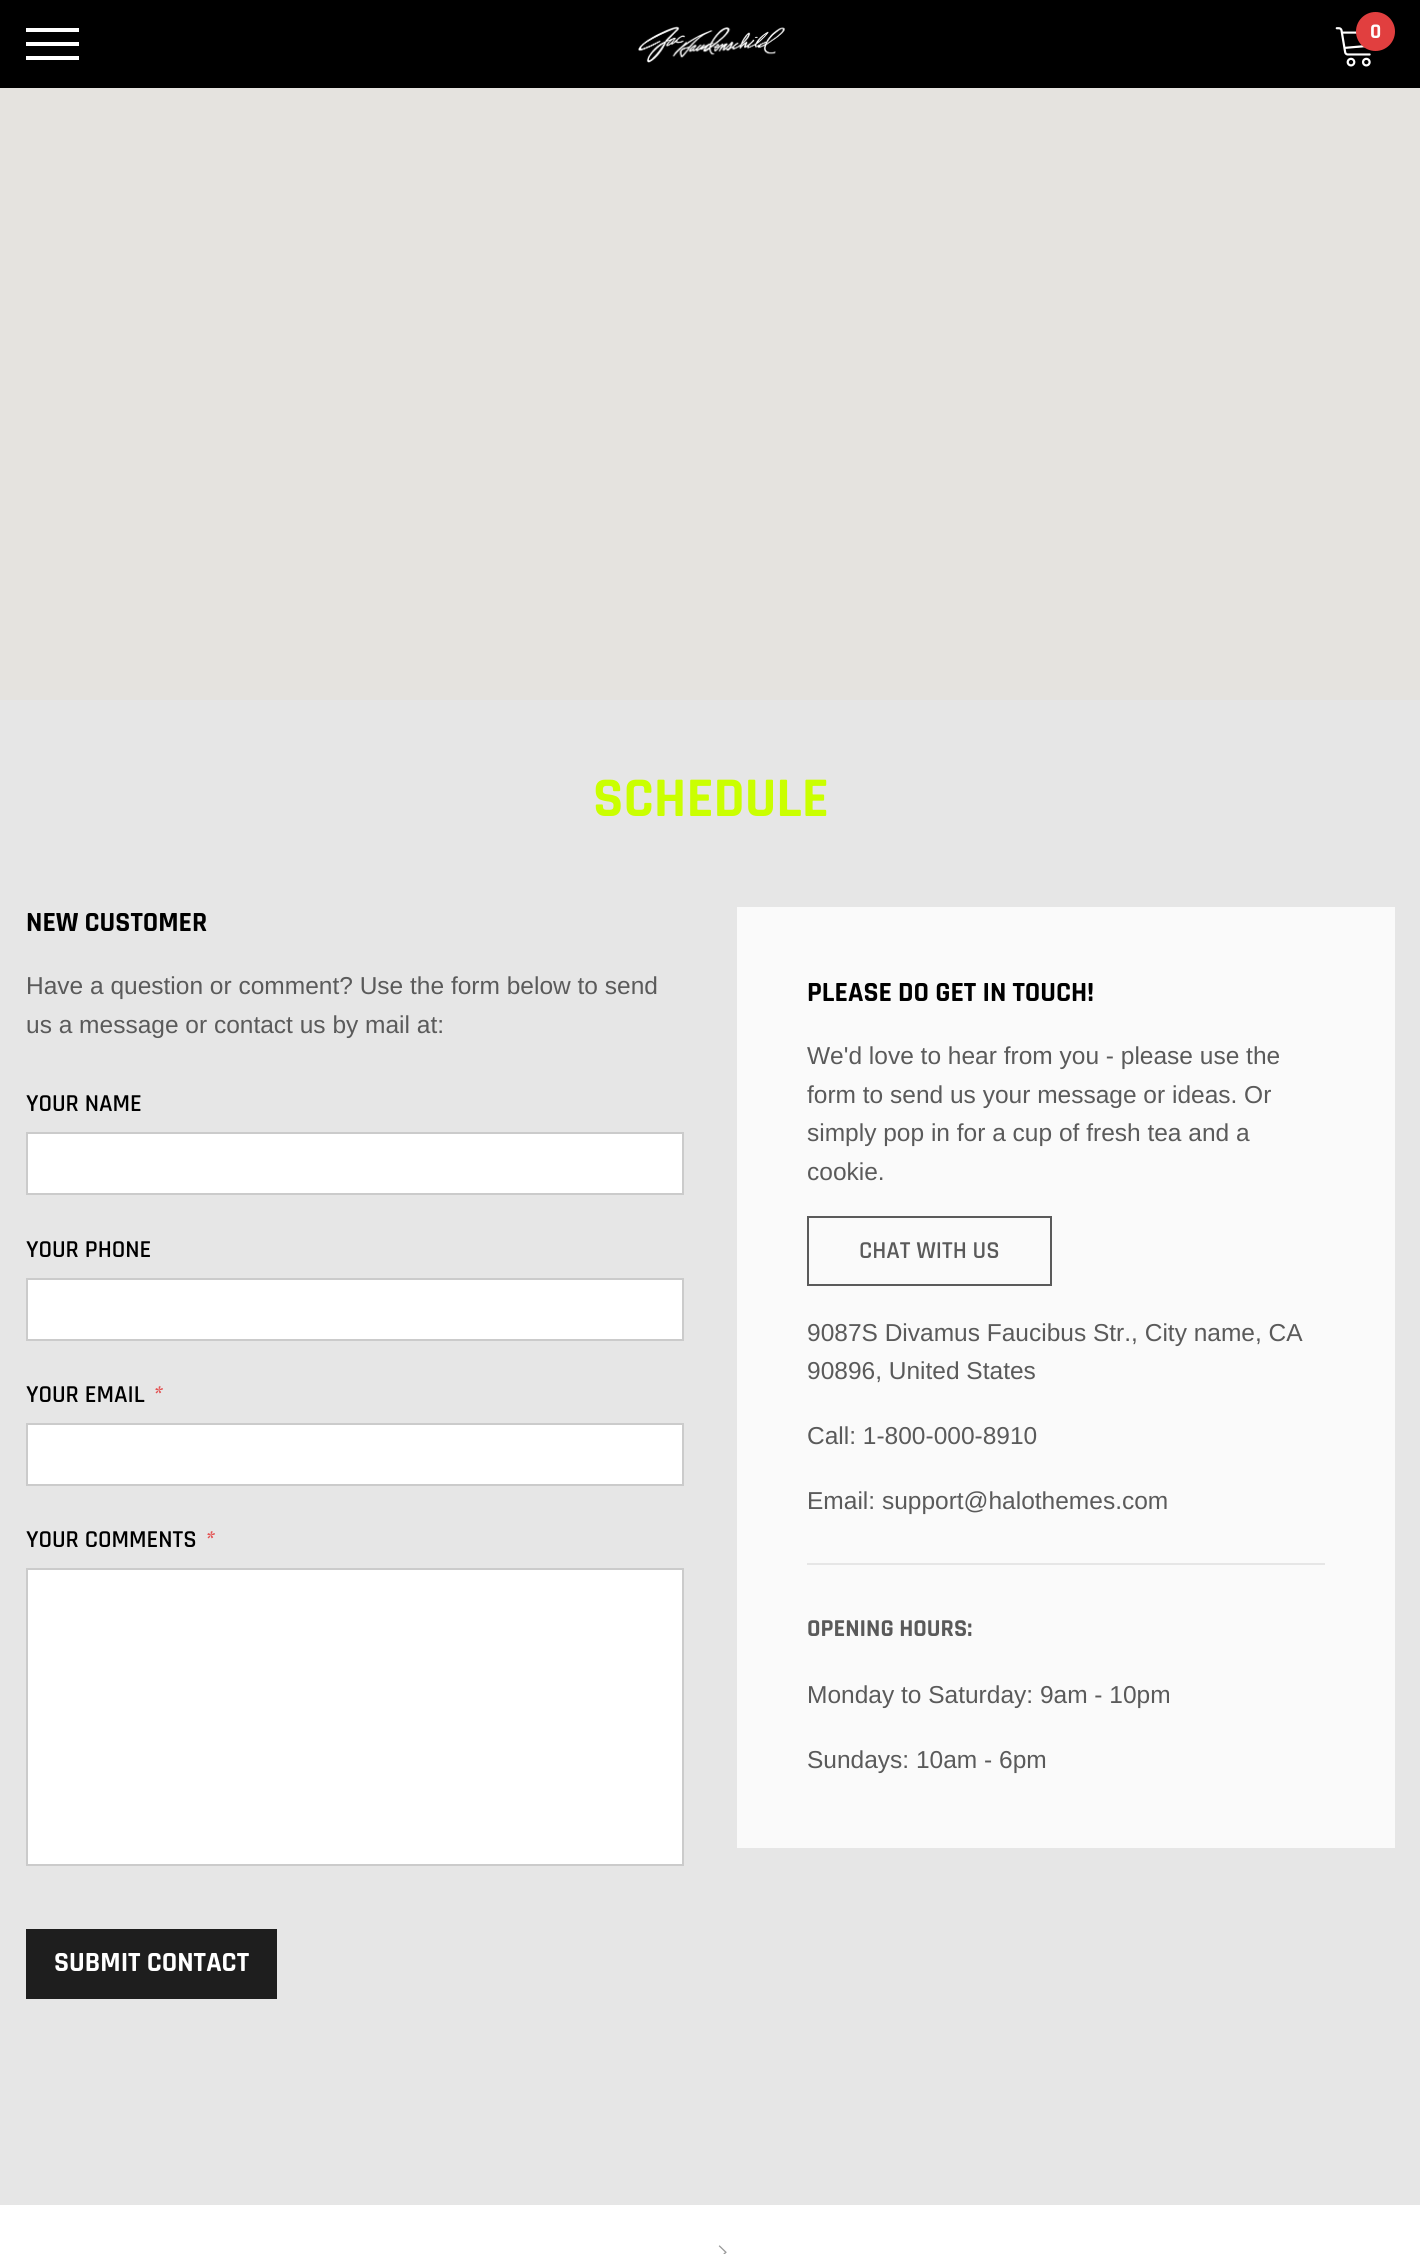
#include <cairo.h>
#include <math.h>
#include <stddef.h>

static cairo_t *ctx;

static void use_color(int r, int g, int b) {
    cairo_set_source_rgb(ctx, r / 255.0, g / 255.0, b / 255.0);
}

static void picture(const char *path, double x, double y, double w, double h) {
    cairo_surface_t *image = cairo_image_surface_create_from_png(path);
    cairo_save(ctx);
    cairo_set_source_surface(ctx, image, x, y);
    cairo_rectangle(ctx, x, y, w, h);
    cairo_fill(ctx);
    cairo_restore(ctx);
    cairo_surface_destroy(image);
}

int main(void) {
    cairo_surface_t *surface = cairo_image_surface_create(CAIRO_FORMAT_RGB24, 1420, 2254);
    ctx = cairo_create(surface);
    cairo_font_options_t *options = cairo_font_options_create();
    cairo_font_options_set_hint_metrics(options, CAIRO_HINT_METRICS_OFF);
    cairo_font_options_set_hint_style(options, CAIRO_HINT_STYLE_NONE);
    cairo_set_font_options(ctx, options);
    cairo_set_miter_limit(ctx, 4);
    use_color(230, 230, 230);
    cairo_paint(ctx);
    use_color(0, 0, 0);
    cairo_rectangle(ctx, 0, 0, 1420, 88);
    cairo_fill(ctx);
    use_color(255, 255, 255);
    cairo_rectangle(ctx, 26, 42, 53, 4);
    cairo_fill(ctx);
    cairo_rectangle(ctx, 26, 28, 53, 4);
    cairo_fill(ctx);
    cairo_rectangle(ctx, 26, 56, 53, 4);
    cairo_fill(ctx);
    picture("img1.png", 638, 26, 147, 37);
    picture("img2.png", 1335, 27, 36, 40);
    use_color(225, 63, 63);
    cairo_arc(ctx, 1375.5, 31.5, 19.5, 0, 2 * M_PI);
    cairo_fill(ctx);
    cairo_select_font_face(ctx, "Rajdhani", CAIRO_FONT_SLANT_NORMAL, CAIRO_FONT_WEIGHT_BOLD);
    cairo_set_font_size(ctx, 21);
    use_color(255, 255, 255);
    cairo_move_to(ctx, 1370, 38);
    cairo_show_text(ctx, "0");
    use_color(229, 227, 223);
    cairo_rectangle(ctx, 0, 88, 1420, 612);
    cairo_fill(ctx);
    cairo_set_font_size(ctx, 56.5);
    use_color(202, 255, 0);
    cairo_move_to(ctx, 593, 816);
    cairo_show_text(ctx, "SCHEDULE");
    cairo_set_font_size(ctx, 28);
    use_color(0, 0, 0);
    cairo_move_to(ctx, 26, 931);
    cairo_show_text(ctx, "NEW CUSTOMER");
    cairo_select_font_face(ctx, "Arimo", CAIRO_FONT_SLANT_NORMAL, CAIRO_FONT_WEIGHT_NORMAL);
    cairo_set_font_size(ctx, 24.5);
    use_color(90, 90, 90);
    cairo_move_to(ctx, 26, 994);
    cairo_show_text(ctx, "Have a question or comment? Use the form below to send");
    cairo_move_to(ctx, 26, 1033);
    cairo_show_text(ctx, "us a message or contact us by mail at:");
    cairo_select_font_face(ctx, "Rajdhani SemiBold", CAIRO_FONT_SLANT_NORMAL, CAIRO_FONT_WEIGHT_NORMAL);
    use_color(0, 0, 0);
    cairo_move_to(ctx, 26, 1111);
    cairo_show_text(ctx, "YOUR NAME");
    use_color(255, 255, 255);
    cairo_rectangle(ctx, 27, 1133, 656, 61);
    cairo_fill_preserve(ctx);
    use_color(203, 203, 203);
    cairo_stroke(ctx);
    use_color(0, 0, 0);
    cairo_move_to(ctx, 26, 1257);
    cairo_show_text(ctx, "YOUR PHONE");
    use_color(255, 255, 255);
    cairo_rectangle(ctx, 27, 1279, 656, 61);
    cairo_fill_preserve(ctx);
    use_color(203, 203, 203);
    cairo_stroke(ctx);
    use_color(0, 0, 0);
    cairo_move_to(ctx, 26, 1402);
    cairo_show_text(ctx, "YOUR EMAIL");
    cairo_select_font_face(ctx, "Rajdhani SemiBold", CAIRO_FONT_SLANT_ITALIC, CAIRO_FONT_WEIGHT_NORMAL);
    use_color(227, 83, 83);
    cairo_move_to(ctx, 151, 1402);
    cairo_show_text(ctx, "*");
    use_color(255, 255, 255);
    cairo_rectangle(ctx, 27, 1424, 656, 61);
    cairo_fill_preserve(ctx);
    use_color(203, 203, 203);
    cairo_stroke(ctx);
    cairo_select_font_face(ctx, "Rajdhani SemiBold", CAIRO_FONT_SLANT_NORMAL, CAIRO_FONT_WEIGHT_NORMAL);
    use_color(0, 0, 0);
    cairo_move_to(ctx, 26, 1547);
    cairo_show_text(ctx, "YOUR COMMENTS");
    cairo_select_font_face(ctx, "Rajdhani SemiBold", CAIRO_FONT_SLANT_ITALIC, CAIRO_FONT_WEIGHT_NORMAL);
    use_color(227, 83, 83);
    cairo_move_to(ctx, 203, 1547);
    cairo_show_text(ctx, "*");
    use_color(255, 255, 255);
    cairo_rectangle(ctx, 27, 1569, 656, 296);
    cairo_fill_preserve(ctx);
    use_color(203, 203, 203);
    cairo_stroke(ctx);
    use_color(30, 30, 30);
    cairo_rectangle(ctx, 26, 1929, 251, 70);
    cairo_fill(ctx);
    cairo_select_font_face(ctx, "Rajdhani", CAIRO_FONT_SLANT_NORMAL, CAIRO_FONT_WEIGHT_BOLD);
    cairo_set_font_size(ctx, 28);
    use_color(255, 255, 255);
    cairo_move_to(ctx, 54, 1971);
    cairo_show_text(ctx, "SUBMIT CONTACT");
    use_color(250, 250, 250);
    cairo_rectangle(ctx, 737, 907, 658, 941);
    cairo_fill(ctx);
    use_color(0, 0, 0);
    cairo_move_to(ctx, 807, 1001);
    cairo_show_text(ctx, "PLEASE DO GET IN TOUCH!");
    cairo_select_font_face(ctx, "Arimo", CAIRO_FONT_SLANT_NORMAL, CAIRO_FONT_WEIGHT_NORMAL);
    cairo_set_font_size(ctx, 24.5);
    use_color(90, 90, 90);
    cairo_move_to(ctx, 807, 1064);
    cairo_show_text(ctx, "We'd love to hear from you - please use the");
    cairo_move_to(ctx, 807, 1103);
    cairo_show_text(ctx, "form to send us your message or ideas. Or");
    cairo_move_to(ctx, 807, 1141);
    cairo_show_text(ctx, "simply pop in for a cup of fresh tea and a");
    cairo_move_to(ctx, 807, 1180);
    cairo_show_text(ctx, "cookie.");
    cairo_rectangle(ctx, 808, 1217, 243, 68);
    cairo_stroke(ctx);
    cairo_select_font_face(ctx, "Rajdhani SemiBold", CAIRO_FONT_SLANT_NORMAL, CAIRO_FONT_WEIGHT_NORMAL);
    cairo_move_to(ctx, 859, 1258);
    cairo_show_text(ctx, "CHAT WITH US");
    cairo_select_font_face(ctx, "Arimo", CAIRO_FONT_SLANT_NORMAL, CAIRO_FONT_WEIGHT_NORMAL);
    cairo_move_to(ctx, 807, 1341);
    cairo_show_text(ctx, "9087S Divamus Faucibus Str., City name, CA");
    cairo_move_to(ctx, 807, 1379);
    cairo_show_text(ctx, "90896, United States");
    cairo_move_to(ctx, 807, 1444);
    cairo_show_text(ctx, "Call: 1-800-000-8910");
    cairo_move_to(ctx, 807, 1509);
    cairo_show_text(ctx, "Email: support@halothemes.com");
    use_color(230, 230, 230);
    cairo_rectangle(ctx, 807, 1563, 518, 2);
    cairo_fill(ctx);
    cairo_select_font_face(ctx, "Rajdhani", CAIRO_FONT_SLANT_NORMAL, CAIRO_FONT_WEIGHT_BOLD);
    use_color(90, 90, 90);
    cairo_move_to(ctx, 807, 1636);
    cairo_show_text(ctx, "OPENING HOURS:");
    cairo_select_font_face(ctx, "Arimo", CAIRO_FONT_SLANT_NORMAL, CAIRO_FONT_WEIGHT_NORMAL);
    cairo_move_to(ctx, 807, 1703);
    cairo_show_text(ctx, "Monday to Saturday: 9am - 10pm");
    cairo_move_to(ctx, 807, 1768);
    cairo_show_text(ctx, "Sundays: 10am - 6pm");
    use_color(255, 255, 255);
    cairo_rectangle(ctx, 0, 2205, 1420, 49);
    cairo_fill(ctx);
    picture("img3.png", 718, 2245, 9, 9);
    cairo_surface_write_to_png(surface, "result.png");
    cairo_font_options_destroy(options);
    cairo_destroy(ctx);
    cairo_surface_destroy(surface);
    return 0;
}
